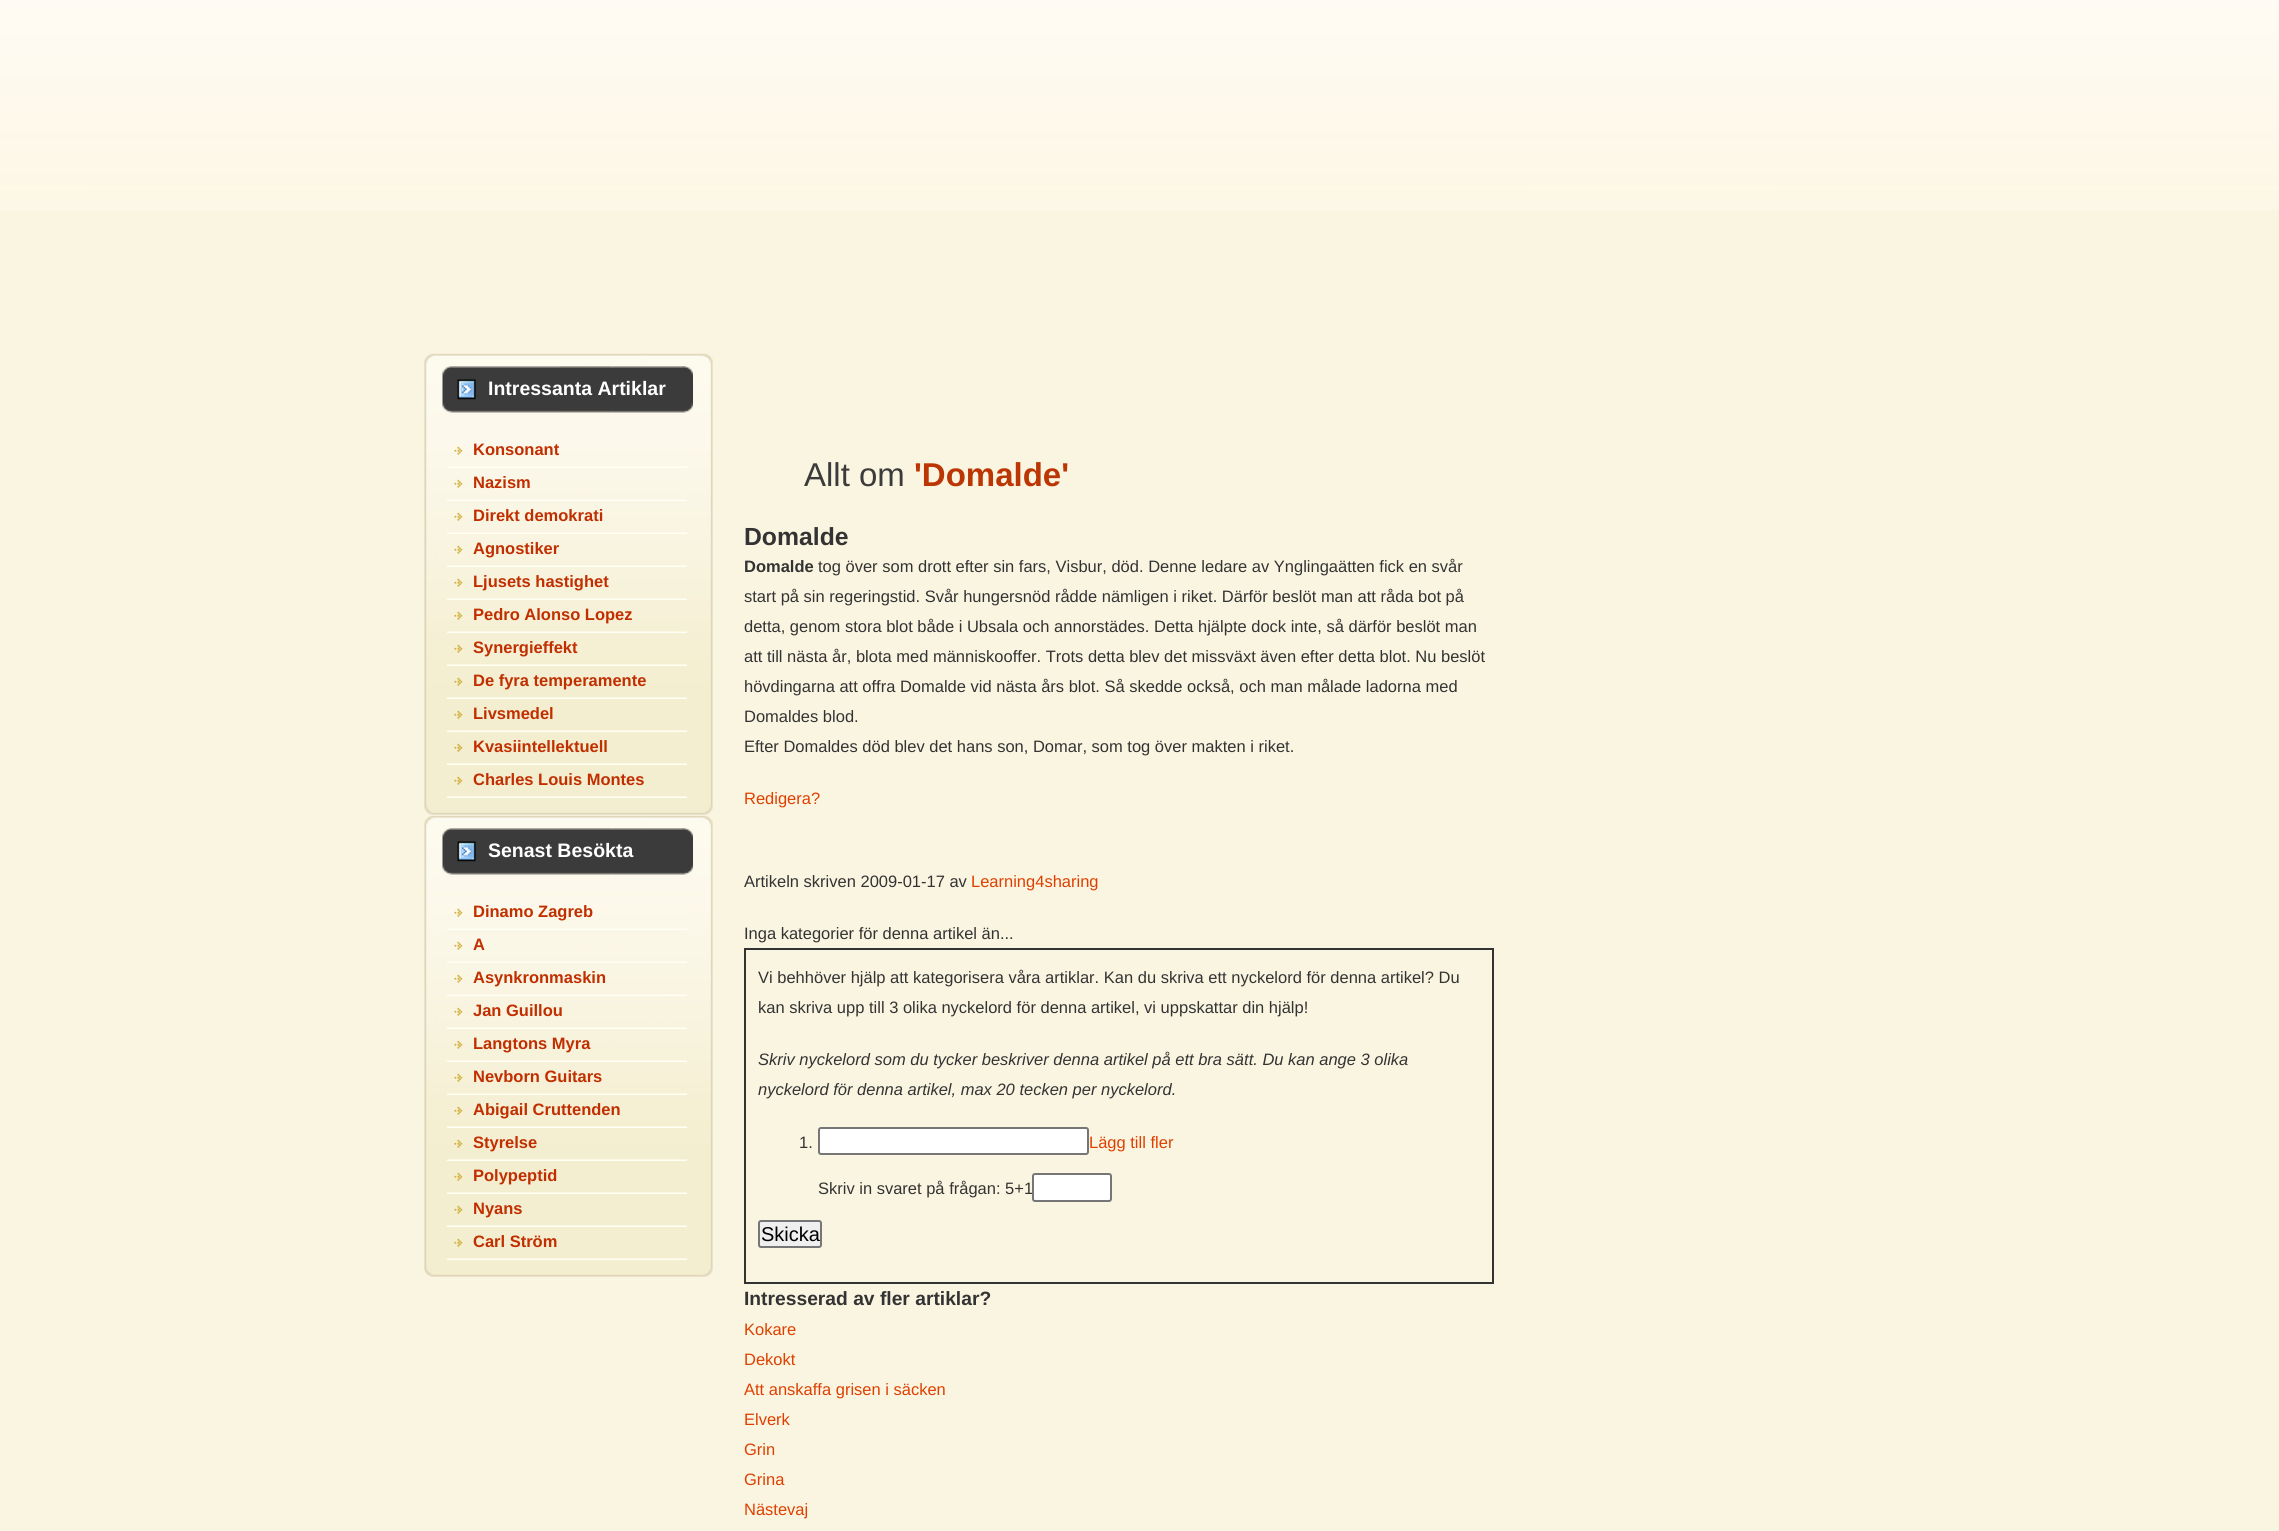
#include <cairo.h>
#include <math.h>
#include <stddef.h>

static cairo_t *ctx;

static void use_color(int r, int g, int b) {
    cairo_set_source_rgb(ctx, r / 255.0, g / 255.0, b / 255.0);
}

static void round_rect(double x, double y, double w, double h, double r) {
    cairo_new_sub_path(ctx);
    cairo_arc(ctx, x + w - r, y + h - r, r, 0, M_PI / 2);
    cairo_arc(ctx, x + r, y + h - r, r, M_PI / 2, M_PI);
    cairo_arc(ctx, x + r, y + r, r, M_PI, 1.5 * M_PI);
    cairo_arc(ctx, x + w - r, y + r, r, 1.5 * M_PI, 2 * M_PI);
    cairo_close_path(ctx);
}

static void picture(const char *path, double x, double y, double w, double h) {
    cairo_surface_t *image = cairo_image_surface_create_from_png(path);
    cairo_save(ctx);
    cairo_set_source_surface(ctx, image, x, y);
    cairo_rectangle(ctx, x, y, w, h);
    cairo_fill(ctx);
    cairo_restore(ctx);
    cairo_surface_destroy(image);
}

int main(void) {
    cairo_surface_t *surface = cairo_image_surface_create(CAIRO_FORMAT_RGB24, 2279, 1531);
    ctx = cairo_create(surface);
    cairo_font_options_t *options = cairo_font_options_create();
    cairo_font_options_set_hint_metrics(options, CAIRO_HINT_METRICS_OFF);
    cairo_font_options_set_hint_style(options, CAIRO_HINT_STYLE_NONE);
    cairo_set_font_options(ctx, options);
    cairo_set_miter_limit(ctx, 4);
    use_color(250, 245, 225);
    cairo_paint(ctx);
    picture("img1.png", 0, 0, 2279, 210);
    picture("img2.png", 424, 353, 289, 13);
    picture("img3.png", 424, 366, 289, 432);
    picture("img4.png", 442, 366, 251, 47);
    cairo_select_font_face(ctx, "Liberation Sans", CAIRO_FONT_SLANT_NORMAL, CAIRO_FONT_WEIGHT_BOLD);
    cairo_set_font_size(ctx, 19.5);
    use_color(255, 255, 255);
    cairo_move_to(ctx, 488, 395);
    cairo_show_text(ctx, "Intressanta Artiklar");
    picture("img5.png", 447, 446, 240, 22);
    cairo_set_font_size(ctx, 16.5);
    use_color(193, 47, 0);
    cairo_move_to(ctx, 473, 455);
    cairo_show_text(ctx, "Konsonant");
    picture("img6.png", 447, 479, 240, 22);
    cairo_move_to(ctx, 473, 488);
    cairo_show_text(ctx, "Nazism");
    picture("img7.png", 447, 512, 240, 22);
    cairo_move_to(ctx, 473, 521);
    cairo_show_text(ctx, "Direkt demokrati");
    picture("img8.png", 447, 545, 240, 22);
    cairo_move_to(ctx, 473, 554);
    cairo_show_text(ctx, "Agnostiker");
    picture("img9.png", 447, 578, 240, 22);
    cairo_move_to(ctx, 473, 587);
    cairo_show_text(ctx, "Ljusets hastighet");
    picture("img10.png", 447, 611, 240, 22);
    cairo_move_to(ctx, 473, 620);
    cairo_show_text(ctx, "Pedro Alonso Lopez");
    picture("img11.png", 447, 644, 240, 22);
    cairo_move_to(ctx, 473, 653);
    cairo_show_text(ctx, "Synergieffekt");
    picture("img12.png", 447, 677, 240, 22);
    cairo_move_to(ctx, 473, 686);
    cairo_show_text(ctx, "De fyra temperamente");
    picture("img13.png", 447, 710, 240, 22);
    cairo_move_to(ctx, 473, 719);
    cairo_show_text(ctx, "Livsmedel");
    picture("img13.png", 447, 743, 240, 22);
    cairo_move_to(ctx, 473, 752);
    cairo_show_text(ctx, "Kvasiintellektuell");
    picture("img13.png", 447, 776, 240, 22);
    cairo_move_to(ctx, 473, 785);
    cairo_show_text(ctx, "Charles Louis Montes");
    picture("img14.png", 424, 798, 289, 17);
    picture("img2.png", 424, 815, 289, 13);
    picture("img3.png", 424, 828, 289, 432);
    picture("img4.png", 442, 828, 251, 47);
    cairo_set_font_size(ctx, 19.5);
    use_color(255, 255, 255);
    cairo_move_to(ctx, 488, 857);
    cairo_show_text(ctx, "Senast Besökta");
    picture("img5.png", 447, 908, 240, 22);
    cairo_set_font_size(ctx, 16.5);
    use_color(193, 47, 0);
    cairo_move_to(ctx, 473, 917);
    cairo_show_text(ctx, "Dinamo Zagreb");
    picture("img6.png", 447, 941, 240, 22);
    cairo_move_to(ctx, 473, 950);
    cairo_show_text(ctx, "A");
    picture("img7.png", 447, 974, 240, 22);
    cairo_move_to(ctx, 473, 983);
    cairo_show_text(ctx, "Asynkronmaskin");
    picture("img8.png", 447, 1007, 240, 22);
    cairo_move_to(ctx, 473, 1016);
    cairo_show_text(ctx, "Jan Guillou");
    picture("img9.png", 447, 1040, 240, 22);
    cairo_move_to(ctx, 473, 1049);
    cairo_show_text(ctx, "Langtons Myra");
    picture("img10.png", 447, 1073, 240, 22);
    cairo_move_to(ctx, 473, 1082);
    cairo_show_text(ctx, "Nevborn Guitars");
    picture("img11.png", 447, 1106, 240, 22);
    cairo_move_to(ctx, 473, 1115);
    cairo_show_text(ctx, "Abigail Cruttenden");
    picture("img12.png", 447, 1139, 240, 22);
    cairo_move_to(ctx, 473, 1148);
    cairo_show_text(ctx, "Styrelse");
    picture("img13.png", 447, 1172, 240, 22);
    cairo_move_to(ctx, 473, 1181);
    cairo_show_text(ctx, "Polypeptid");
    picture("img13.png", 447, 1205, 240, 22);
    cairo_move_to(ctx, 473, 1214);
    cairo_show_text(ctx, "Nyans");
    picture("img13.png", 447, 1238, 240, 22);
    cairo_move_to(ctx, 473, 1247);
    cairo_show_text(ctx, "Carl Ström");
    picture("img14.png", 424, 1260, 289, 17);
    cairo_select_font_face(ctx, "Liberation Sans", CAIRO_FONT_SLANT_NORMAL, CAIRO_FONT_WEIGHT_NORMAL);
    cairo_set_font_size(ctx, 33);
    use_color(59, 59, 59);
    cairo_move_to(ctx, 804, 486);
    cairo_show_text(ctx, "Allt om");
    cairo_select_font_face(ctx, "Liberation Sans", CAIRO_FONT_SLANT_NORMAL, CAIRO_FONT_WEIGHT_BOLD);
    use_color(187, 54, 4);
    cairo_move_to(ctx, 914, 486);
    cairo_show_text(ctx, "'Domalde'");
    cairo_set_font_size(ctx, 24.75);
    use_color(51, 51, 51);
    cairo_move_to(ctx, 744, 545);
    cairo_show_text(ctx, "Domalde");
    cairo_set_font_size(ctx, 16.5);
    cairo_move_to(ctx, 744, 572);
    cairo_show_text(ctx, "Domalde");
    cairo_select_font_face(ctx, "Liberation Sans", CAIRO_FONT_SLANT_NORMAL, CAIRO_FONT_WEIGHT_NORMAL);
    cairo_move_to(ctx, 818, 572);
    cairo_show_text(ctx, "tog över som drott efter sin fars, Visbur, död. Denne ledare av Ynglingaätten fick en svår");
    cairo_move_to(ctx, 744, 602);
    cairo_show_text(ctx, "start på sin regeringstid. Svår hungersnöd rådde nämligen i riket. Därför beslöt man att råda bot på");
    cairo_move_to(ctx, 744, 632);
    cairo_show_text(ctx, "detta, genom stora blot både i Ubsala och annorstädes. Detta hjälpte dock inte, så därför beslöt man");
    cairo_move_to(ctx, 744, 662);
    cairo_show_text(ctx, "att till nästa år, blota med människooffer. Trots detta blev det missväxt även efter detta blot. Nu beslöt");
    cairo_move_to(ctx, 744, 692);
    cairo_show_text(ctx, "hövdingarna att offra Domalde vid nästa års blot. Så skedde också, och man målade ladorna med");
    cairo_move_to(ctx, 744, 722);
    cairo_show_text(ctx, "Domaldes blod.");
    cairo_move_to(ctx, 744, 752);
    cairo_show_text(ctx, "Efter Domaldes död blev det hans son, Domar, som tog över makten i riket.");
    use_color(223, 63, 0);
    cairo_move_to(ctx, 744, 804);
    cairo_show_text(ctx, "Redigera?");
    use_color(51, 51, 51);
    cairo_move_to(ctx, 744, 887);
    cairo_show_text(ctx, "Artikeln skriven 2009-01-17 av");
    use_color(223, 63, 0);
    cairo_move_to(ctx, 971, 887);
    cairo_show_text(ctx, "Learning4sharing");
    use_color(51, 51, 51);
    cairo_move_to(ctx, 744, 939);
    cairo_show_text(ctx, "Inga kategorier för denna artikel än...");
    cairo_rectangle(ctx, 745, 949, 748, 334);
    cairo_stroke(ctx);
    cairo_move_to(ctx, 758, 983);
    cairo_show_text(ctx, "Vi behhöver hjälp att kategorisera våra artiklar. Kan du skriva ett nyckelord för denna artikel? Du");
    cairo_move_to(ctx, 758, 1013);
    cairo_show_text(ctx, "kan skriva upp till 3 olika nyckelord för denna artikel, vi uppskattar din hjälp!");
    cairo_select_font_face(ctx, "Liberation Sans", CAIRO_FONT_SLANT_ITALIC, CAIRO_FONT_WEIGHT_NORMAL);
    cairo_move_to(ctx, 758, 1065);
    cairo_show_text(ctx, "Skriv nyckelord som du tycker beskriver denna artikel på ett bra sätt. Du kan ange 3 olika");
    cairo_move_to(ctx, 758, 1095);
    cairo_show_text(ctx, "nyckelord för denna artikel, max 20 tecken per nyckelord.");
    cairo_select_font_face(ctx, "Liberation Sans", CAIRO_FONT_SLANT_NORMAL, CAIRO_FONT_WEIGHT_NORMAL);
    cairo_move_to(ctx, 799, 1148);
    cairo_show_text(ctx, "1.");
    use_color(255, 255, 255);
    round_rect(819, 1128, 269, 26, 2);
    cairo_fill_preserve(ctx);
    use_color(118, 118, 118);
    cairo_stroke(ctx);
    use_color(223, 63, 0);
    cairo_move_to(ctx, 1089, 1148);
    cairo_show_text(ctx, "Lägg till fler");
    use_color(51, 51, 51);
    cairo_move_to(ctx, 818, 1194);
    cairo_show_text(ctx, "Skriv in svaret på frågan: 5+1");
    use_color(255, 255, 255);
    round_rect(1033, 1174, 78, 27, 2);
    cairo_fill_preserve(ctx);
    use_color(118, 118, 118);
    cairo_stroke(ctx);
    use_color(239, 239, 239);
    round_rect(759, 1221, 62, 26, 2);
    cairo_fill_preserve(ctx);
    use_color(118, 118, 118);
    cairo_stroke(ctx);
    cairo_set_font_size(ctx, 20);
    use_color(0, 0, 0);
    cairo_move_to(ctx, 761, 1241);
    cairo_show_text(ctx, "Skicka");
    cairo_select_font_face(ctx, "Liberation Sans", CAIRO_FONT_SLANT_NORMAL, CAIRO_FONT_WEIGHT_BOLD);
    cairo_set_font_size(ctx, 19.25);
    use_color(51, 51, 51);
    cairo_move_to(ctx, 744, 1305);
    cairo_show_text(ctx, "Intresserad av fler artiklar?");
    cairo_select_font_face(ctx, "Liberation Sans", CAIRO_FONT_SLANT_NORMAL, CAIRO_FONT_WEIGHT_NORMAL);
    cairo_set_font_size(ctx, 16.5);
    use_color(223, 63, 0);
    cairo_move_to(ctx, 744, 1335);
    cairo_show_text(ctx, "Kokare");
    cairo_move_to(ctx, 744, 1365);
    cairo_show_text(ctx, "Dekokt");
    cairo_move_to(ctx, 744, 1395);
    cairo_show_text(ctx, "Att anskaffa grisen i säcken");
    cairo_move_to(ctx, 744, 1425);
    cairo_show_text(ctx, "Elverk");
    cairo_move_to(ctx, 744, 1455);
    cairo_show_text(ctx, "Grin");
    cairo_move_to(ctx, 744, 1485);
    cairo_show_text(ctx, "Grina");
    cairo_move_to(ctx, 744, 1515);
    cairo_show_text(ctx, "Nästevaj");
    cairo_surface_write_to_png(surface, "result.png");
    cairo_font_options_destroy(options);
    cairo_destroy(ctx);
    cairo_surface_destroy(surface);
    return 0;
}
